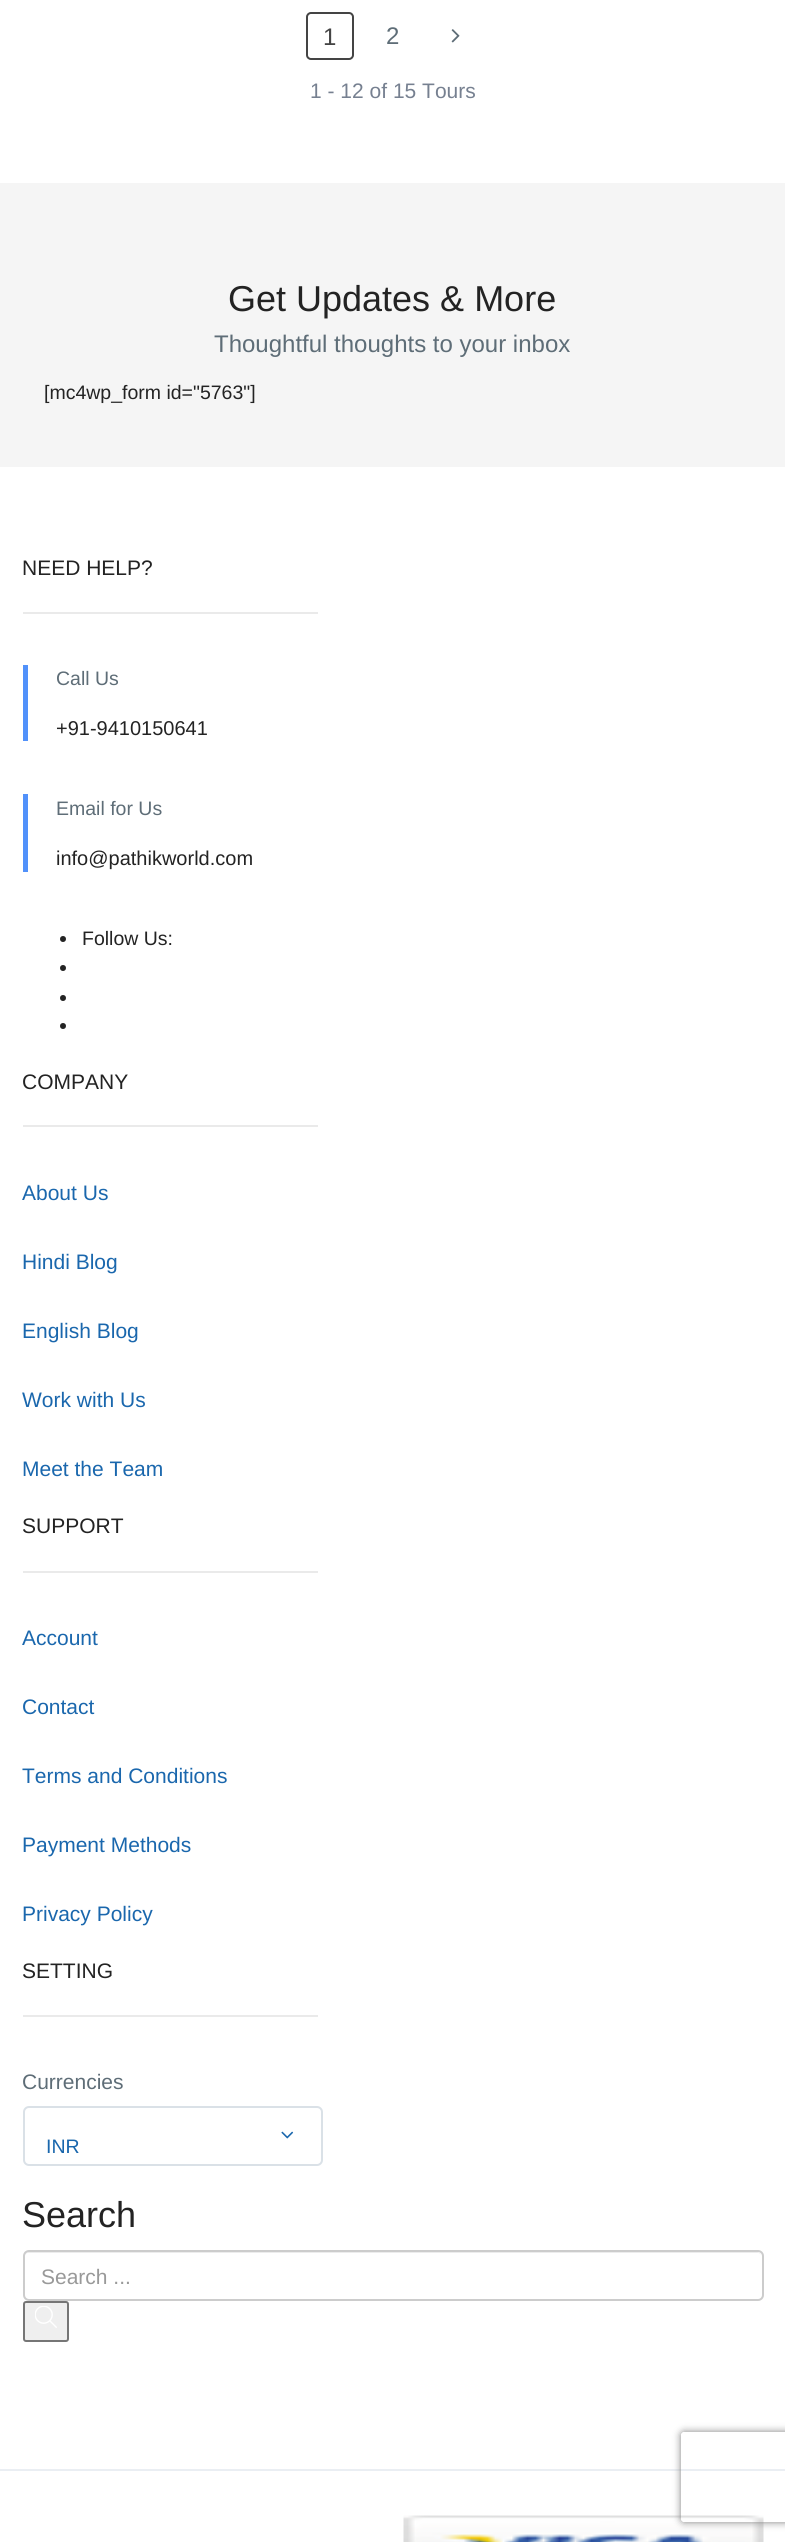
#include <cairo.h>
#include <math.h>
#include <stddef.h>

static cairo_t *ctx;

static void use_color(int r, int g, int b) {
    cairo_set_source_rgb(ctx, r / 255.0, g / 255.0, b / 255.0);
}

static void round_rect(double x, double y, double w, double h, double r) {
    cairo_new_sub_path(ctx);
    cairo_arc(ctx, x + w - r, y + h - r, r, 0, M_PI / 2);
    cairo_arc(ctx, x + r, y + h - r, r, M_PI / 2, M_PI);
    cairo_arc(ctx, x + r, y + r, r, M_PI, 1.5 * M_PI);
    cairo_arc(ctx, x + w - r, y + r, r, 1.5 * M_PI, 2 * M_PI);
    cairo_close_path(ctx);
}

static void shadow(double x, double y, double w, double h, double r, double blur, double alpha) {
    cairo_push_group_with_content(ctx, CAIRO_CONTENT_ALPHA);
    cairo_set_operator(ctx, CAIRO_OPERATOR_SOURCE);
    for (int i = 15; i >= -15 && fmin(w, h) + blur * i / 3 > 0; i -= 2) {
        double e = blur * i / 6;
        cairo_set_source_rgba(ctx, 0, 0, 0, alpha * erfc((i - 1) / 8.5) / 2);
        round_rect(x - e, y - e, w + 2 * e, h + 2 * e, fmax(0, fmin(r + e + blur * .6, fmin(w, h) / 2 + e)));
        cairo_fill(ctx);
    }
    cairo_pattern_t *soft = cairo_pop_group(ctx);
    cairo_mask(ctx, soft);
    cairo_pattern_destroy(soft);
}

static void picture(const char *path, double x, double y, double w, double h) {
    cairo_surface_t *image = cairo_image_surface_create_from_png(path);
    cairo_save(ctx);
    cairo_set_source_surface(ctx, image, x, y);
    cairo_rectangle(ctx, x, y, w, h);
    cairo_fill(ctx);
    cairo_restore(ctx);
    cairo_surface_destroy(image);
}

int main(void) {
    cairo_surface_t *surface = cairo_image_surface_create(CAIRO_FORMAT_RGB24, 785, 2542);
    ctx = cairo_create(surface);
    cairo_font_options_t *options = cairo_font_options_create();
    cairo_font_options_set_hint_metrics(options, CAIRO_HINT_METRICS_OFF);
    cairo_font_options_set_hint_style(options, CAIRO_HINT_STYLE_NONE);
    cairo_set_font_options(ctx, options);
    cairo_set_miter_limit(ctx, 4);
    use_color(255, 255, 255);
    cairo_paint(ctx);
    round_rect(307, 13, 46, 46, 4);
    use_color(68, 68, 68);
    cairo_stroke(ctx);
    cairo_select_font_face(ctx, "Liberation Sans", CAIRO_FONT_SLANT_NORMAL, CAIRO_FONT_WEIGHT_NORMAL);
    cairo_set_font_size(ctx, 24);
    cairo_move_to(ctx, 323, 45);
    cairo_show_text(ctx, "1");
    use_color(94, 109, 119);
    cairo_move_to(ctx, 386, 44);
    cairo_show_text(ctx, "2");
    picture("img1.png", 451, 29, 9, 14);
    cairo_set_font_size(ctx, 21);
    use_color(118, 128, 144);
    cairo_move_to(ctx, 310, 98);
    cairo_show_text(ctx, "1 - 12 of 15 Tours");
    use_color(234, 238, 243);
    cairo_rectangle(ctx, 0, 2469, 785, 2);
    cairo_fill(ctx);
    use_color(245, 245, 245);
    cairo_rectangle(ctx, 0, 183, 785, 284);
    cairo_fill(ctx);
    cairo_set_font_size(ctx, 36);
    use_color(35, 35, 35);
    cairo_move_to(ctx, 228, 311);
    cairo_show_text(ctx, "Get Updates & More");
    cairo_set_font_size(ctx, 24);
    use_color(94, 109, 119);
    cairo_move_to(ctx, 214, 352);
    cairo_show_text(ctx, "Thoughtful thoughts to your inbox");
    cairo_set_font_size(ctx, 19.5);
    use_color(35, 35, 35);
    cairo_move_to(ctx, 44, 399);
    cairo_show_text(ctx, "[mc4wp_form id=\"5763\"]");
    cairo_set_font_size(ctx, 21);
    cairo_move_to(ctx, 22, 575);
    cairo_show_text(ctx, "NEED HELP?");
    use_color(234, 234, 234);
    cairo_rectangle(ctx, 23, 612, 295, 2);
    cairo_fill(ctx);
    use_color(81, 145, 250);
    cairo_rectangle(ctx, 23, 665, 5, 76);
    cairo_fill(ctx);
    cairo_set_font_size(ctx, 19.5);
    use_color(94, 109, 119);
    cairo_move_to(ctx, 56, 685);
    cairo_show_text(ctx, "Call Us");
    cairo_set_font_size(ctx, 20);
    use_color(35, 35, 35);
    cairo_move_to(ctx, 56, 735);
    cairo_show_text(ctx, "+91-9410150641");
    use_color(81, 145, 250);
    cairo_rectangle(ctx, 23, 794, 5, 78);
    cairo_fill(ctx);
    cairo_set_font_size(ctx, 19.5);
    use_color(94, 109, 119);
    cairo_move_to(ctx, 56, 815);
    cairo_show_text(ctx, "Email for Us");
    cairo_set_font_size(ctx, 20);
    use_color(35, 35, 35);
    cairo_move_to(ctx, 56, 865);
    cairo_show_text(ctx, "info@pathikworld.com");
    cairo_new_path(ctx);
    cairo_arc(ctx, 63, 939, 3, 0, 2 * M_PI);
    cairo_fill(ctx);
    cairo_set_font_size(ctx, 19.5);
    cairo_move_to(ctx, 82, 945);
    cairo_show_text(ctx, "Follow Us:");
    cairo_new_path(ctx);
    cairo_arc(ctx, 63, 968, 3, 0, 2 * M_PI);
    cairo_fill(ctx);
    cairo_arc(ctx, 63, 998, 3, 0, 2 * M_PI);
    cairo_fill(ctx);
    cairo_arc(ctx, 63, 1026, 3, 0, 2 * M_PI);
    cairo_fill(ctx);
    cairo_set_font_size(ctx, 21);
    cairo_move_to(ctx, 22, 1089);
    cairo_show_text(ctx, "COMPANY");
    use_color(234, 234, 234);
    cairo_rectangle(ctx, 23, 1125, 295, 2);
    cairo_fill(ctx);
    use_color(26, 103, 173);
    cairo_move_to(ctx, 22, 1200);
    cairo_show_text(ctx, "About Us");
    cairo_move_to(ctx, 22, 1269);
    cairo_show_text(ctx, "Hindi Blog");
    cairo_move_to(ctx, 22, 1338);
    cairo_show_text(ctx, "English Blog");
    cairo_move_to(ctx, 22, 1407);
    cairo_show_text(ctx, "Work with Us");
    cairo_move_to(ctx, 22, 1476);
    cairo_show_text(ctx, "Meet the Team");
    use_color(35, 35, 35);
    cairo_move_to(ctx, 22, 1533);
    cairo_show_text(ctx, "SUPPORT");
    use_color(234, 234, 234);
    cairo_rectangle(ctx, 23, 1571, 295, 2);
    cairo_fill(ctx);
    use_color(26, 103, 173);
    cairo_move_to(ctx, 22, 1645);
    cairo_show_text(ctx, "Account");
    cairo_move_to(ctx, 22, 1714);
    cairo_show_text(ctx, "Contact");
    cairo_move_to(ctx, 22, 1783);
    cairo_show_text(ctx, "Terms and Conditions");
    cairo_move_to(ctx, 22, 1852);
    cairo_show_text(ctx, "Payment Methods");
    cairo_move_to(ctx, 22, 1921);
    cairo_show_text(ctx, "Privacy Policy");
    use_color(35, 35, 35);
    cairo_move_to(ctx, 22, 1978);
    cairo_show_text(ctx, "SETTING");
    use_color(234, 234, 234);
    cairo_rectangle(ctx, 23, 2015, 295, 2);
    cairo_fill(ctx);
    use_color(94, 109, 119);
    cairo_move_to(ctx, 22, 2089);
    cairo_show_text(ctx, "Currencies");
    round_rect(24, 2107, 298, 58, 5);
    use_color(218, 225, 231);
    cairo_stroke(ctx);
    picture("img2.png", 281, 2131, 13, 8);
    cairo_set_font_size(ctx, 19.5);
    use_color(26, 103, 173);
    cairo_move_to(ctx, 46, 2153);
    cairo_show_text(ctx, "INR");
    cairo_set_font_size(ctx, 36);
    use_color(35, 35, 35);
    cairo_move_to(ctx, 22, 2227);
    cairo_show_text(ctx, "Search");
    use_color(236, 236, 236);
    cairo_new_path(ctx);
    cairo_move_to(ctx, 28, 2253);
    cairo_line_to(ctx, 758, 2253);
    cairo_curve_to(ctx, 760, 2253, 762, 2255, 762, 2258);
    cairo_curve_to(ctx, 762, 2255, 760, 2252, 757, 2252);
    cairo_line_to(ctx, 29, 2252);
    cairo_curve_to(ctx, 26, 2252, 24, 2255, 24, 2258);
    cairo_curve_to(ctx, 24, 2255, 26, 2253, 28, 2253);
    cairo_close_path(ctx);
    cairo_fill(ctx);
    round_rect(24, 2251, 739, 49, 5);
    use_color(204, 204, 204);
    cairo_stroke(ctx);
    cairo_set_font_size(ctx, 21);
    use_color(153, 153, 153);
    cairo_move_to(ctx, 41, 2284);
    cairo_show_text(ctx, "Search ...");
    use_color(239, 239, 239);
    round_rect(24, 2302, 44, 39, 2);
    cairo_fill_preserve(ctx);
    use_color(118, 118, 118);
    cairo_stroke(ctx);
    picture("img3.png", 35, 2306, 22, 22);
    picture("img4.png", 403, 2515, 361, 27);
    cairo_save(ctx);
    cairo_set_fill_rule(ctx, CAIRO_FILL_RULE_EVEN_ODD);
    cairo_new_path(ctx);
    cairo_move_to(ctx, 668, 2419);
    cairo_line_to(ctx, 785, 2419);
    cairo_line_to(ctx, 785, 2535);
    cairo_line_to(ctx, 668, 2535);
    cairo_close_path(ctx);
    cairo_move_to(ctx, 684, 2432);
    cairo_line_to(ctx, 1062, 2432);
    cairo_curve_to(ctx, 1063.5, 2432, 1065, 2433.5, 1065, 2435);
    cairo_line_to(ctx, 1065, 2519);
    cairo_curve_to(ctx, 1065, 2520.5, 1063.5, 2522, 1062, 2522);
    cairo_line_to(ctx, 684, 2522);
    cairo_curve_to(ctx, 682.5, 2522, 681, 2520.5, 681, 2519);
    cairo_line_to(ctx, 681, 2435);
    cairo_curve_to(ctx, 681, 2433.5, 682.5, 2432, 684, 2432);
    cairo_close_path(ctx);
    cairo_clip(ctx);
    use_color(128, 128, 128);
    shadow(681, 2432, 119, 90, 3, 4, 1);
    cairo_restore(ctx);
    cairo_surface_write_to_png(surface, "result.png");
    cairo_font_options_destroy(options);
    cairo_destroy(ctx);
    cairo_surface_destroy(surface);
    return 0;
}
